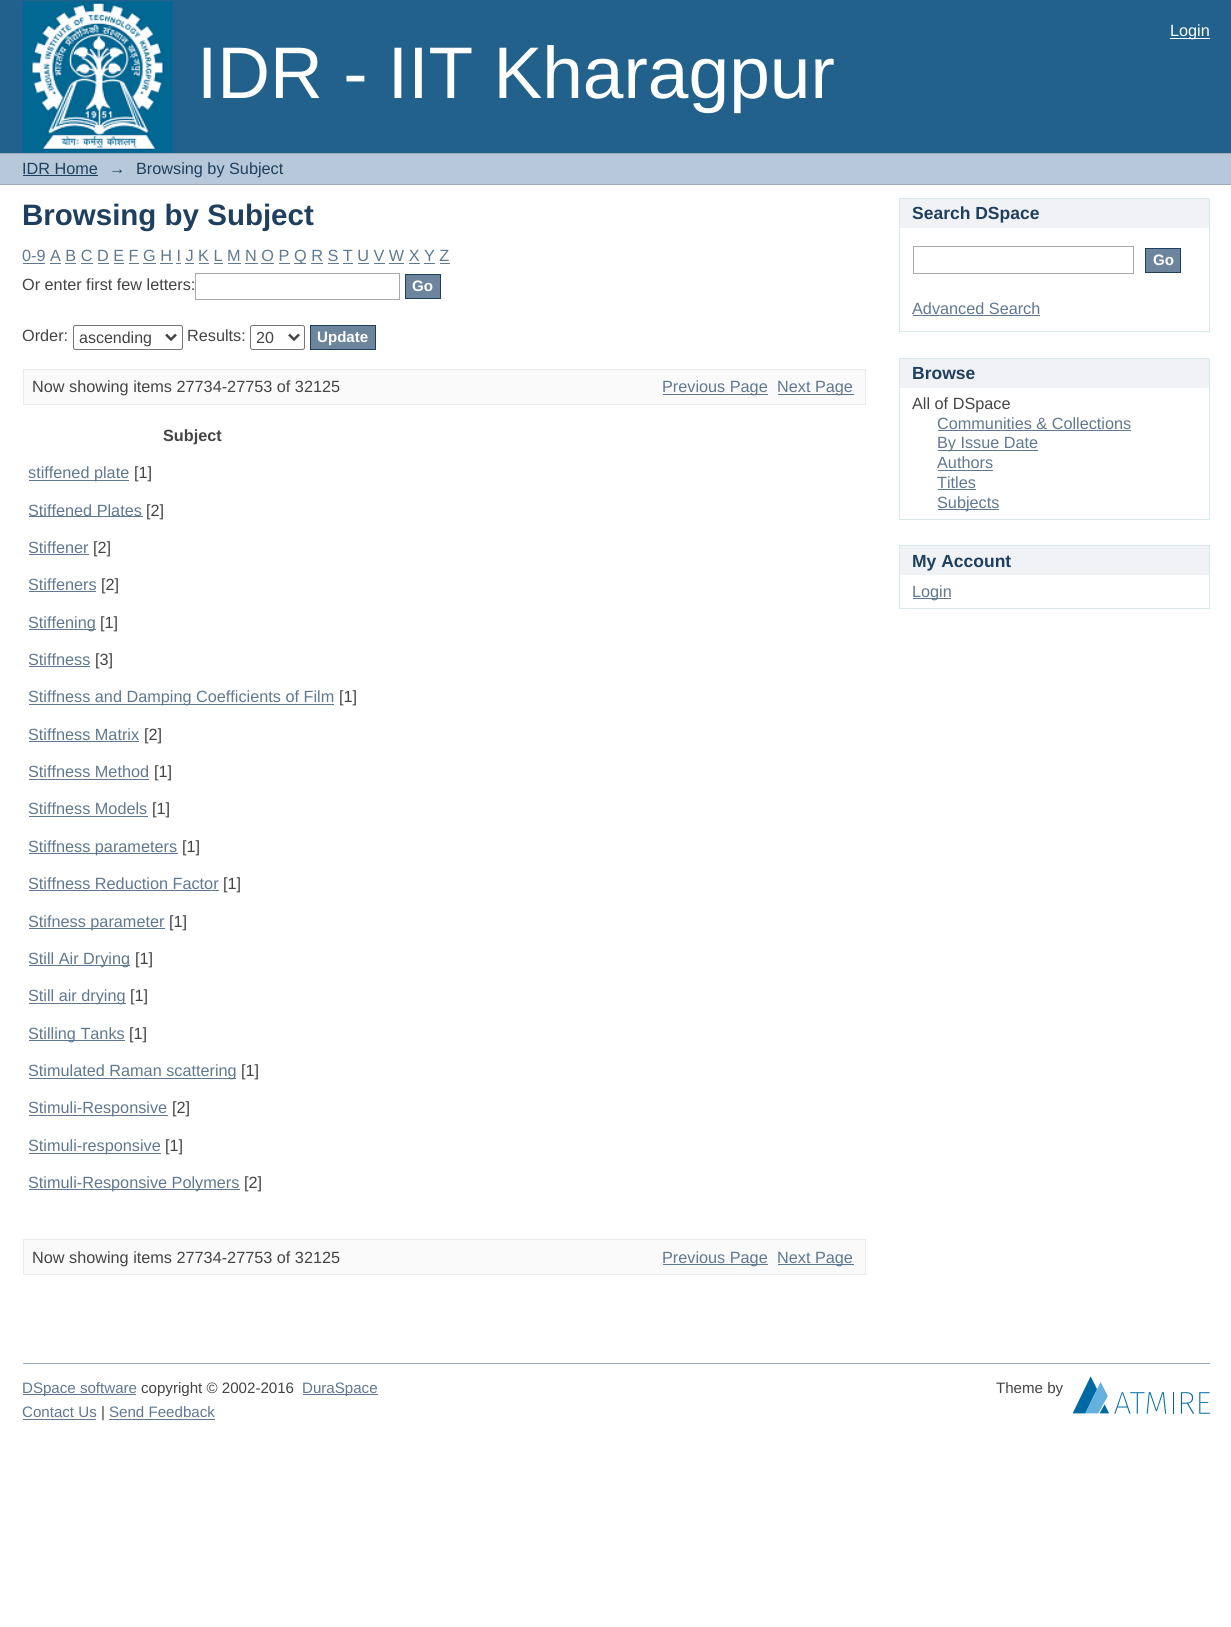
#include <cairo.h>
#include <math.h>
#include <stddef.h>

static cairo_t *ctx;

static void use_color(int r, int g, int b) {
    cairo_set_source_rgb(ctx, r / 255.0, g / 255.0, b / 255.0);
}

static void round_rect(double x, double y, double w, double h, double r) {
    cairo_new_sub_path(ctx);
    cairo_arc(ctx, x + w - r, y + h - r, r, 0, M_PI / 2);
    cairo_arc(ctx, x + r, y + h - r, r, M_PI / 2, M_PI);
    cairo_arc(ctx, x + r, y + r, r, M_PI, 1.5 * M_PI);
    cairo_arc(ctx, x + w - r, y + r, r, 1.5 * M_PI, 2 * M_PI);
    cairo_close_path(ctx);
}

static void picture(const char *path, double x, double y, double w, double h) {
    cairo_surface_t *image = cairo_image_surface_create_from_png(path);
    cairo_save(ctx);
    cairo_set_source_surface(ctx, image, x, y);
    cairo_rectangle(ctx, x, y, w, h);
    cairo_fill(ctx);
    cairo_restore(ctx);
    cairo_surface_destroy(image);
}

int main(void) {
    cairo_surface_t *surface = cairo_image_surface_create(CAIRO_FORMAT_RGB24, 1231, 1627);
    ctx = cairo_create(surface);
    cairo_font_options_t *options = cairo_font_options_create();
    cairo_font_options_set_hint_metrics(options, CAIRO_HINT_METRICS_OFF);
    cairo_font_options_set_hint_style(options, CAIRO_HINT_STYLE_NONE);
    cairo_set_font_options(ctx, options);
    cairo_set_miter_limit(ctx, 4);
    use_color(255, 255, 255);
    cairo_paint(ctx);
    use_color(33, 97, 140);
    cairo_rectangle(ctx, 0, 0, 1231, 153);
    cairo_fill(ctx);
    use_color(255, 255, 255);
    cairo_rectangle(ctx, 1170, 38, 40, 1);
    cairo_fill(ctx);
    cairo_select_font_face(ctx, "Liberation Sans", CAIRO_FONT_SLANT_NORMAL, CAIRO_FONT_WEIGHT_NORMAL);
    cairo_set_font_size(ctx, 16.25);
    cairo_move_to(ctx, 1170, 36);
    cairo_show_text(ctx, "Login");
    picture("img1.png", 22, 1, 151, 152);
    cairo_set_font_size(ctx, 73.1);
    cairo_move_to(ctx, 197, 98);
    cairo_show_text(ctx, "IDR - IIT Kharagpur");
    use_color(182, 200, 217);
    cairo_rectangle(ctx, 0, 154, 1231, 30);
    cairo_fill(ctx);
    use_color(156, 172, 186);
    cairo_rectangle(ctx, 0, 153, 1231, 1);
    cairo_fill(ctx);
    cairo_rectangle(ctx, 0, 184, 1231, 1);
    cairo_fill(ctx);
    cairo_set_font_size(ctx, 16.25);
    use_color(31, 63, 94);
    cairo_move_to(ctx, 22, 174);
    cairo_show_text(ctx, "IDR Home");
    cairo_rectangle(ctx, 23, 175, 75, 1);
    cairo_fill(ctx);
    cairo_move_to(ctx, 109, 174);
    cairo_show_text(ctx, "→");
    cairo_move_to(ctx, 136, 174);
    cairo_show_text(ctx, "Browsing by Subject");
    cairo_select_font_face(ctx, "Liberation Sans", CAIRO_FONT_SLANT_NORMAL, CAIRO_FONT_WEIGHT_BOLD);
    cairo_set_font_size(ctx, 29.5);
    cairo_move_to(ctx, 22, 225);
    cairo_show_text(ctx, "Browsing by Subject");
    cairo_select_font_face(ctx, "Liberation Sans", CAIRO_FONT_SLANT_NORMAL, CAIRO_FONT_WEIGHT_NORMAL);
    cairo_set_font_size(ctx, 16.25);
    use_color(96, 120, 144);
    cairo_move_to(ctx, 22, 261);
    cairo_show_text(ctx, "0-9 A B C D E F G H I J K L M N O P");
    cairo_rectangle(ctx, 23, 263, 22, 1);
    cairo_fill(ctx);
    cairo_rectangle(ctx, 294, 263, 12, 1);
    cairo_fill(ctx);
    cairo_move_to(ctx, 294, 261);
    cairo_show_text(ctx, "Q R S T U V W X Y Z");
    cairo_rectangle(ctx, 50, 263, 11, 1);
    cairo_fill(ctx);
    cairo_rectangle(ctx, 65, 263, 11, 1);
    cairo_fill(ctx);
    cairo_rectangle(ctx, 81, 263, 12, 1);
    cairo_fill(ctx);
    cairo_rectangle(ctx, 98, 263, 11, 1);
    cairo_fill(ctx);
    cairo_rectangle(ctx, 114, 263, 10, 1);
    cairo_fill(ctx);
    cairo_rectangle(ctx, 129, 263, 10, 1);
    cairo_fill(ctx);
    cairo_rectangle(ctx, 143, 263, 13, 1);
    cairo_fill(ctx);
    cairo_rectangle(ctx, 160, 263, 13, 1);
    cairo_fill(ctx);
    cairo_rectangle(ctx, 176, 263, 5, 1);
    cairo_fill(ctx);
    cairo_rectangle(ctx, 185, 263, 9, 1);
    cairo_fill(ctx);
    cairo_rectangle(ctx, 199, 263, 10, 1);
    cairo_fill(ctx);
    cairo_rectangle(ctx, 214, 263, 9, 1);
    cairo_fill(ctx);
    cairo_rectangle(ctx, 228, 263, 13, 1);
    cairo_fill(ctx);
    cairo_rectangle(ctx, 245, 263, 13, 1);
    cairo_fill(ctx);
    cairo_rectangle(ctx, 261, 263, 13, 1);
    cairo_fill(ctx);
    cairo_rectangle(ctx, 279, 263, 11, 1);
    cairo_fill(ctx);
    cairo_rectangle(ctx, 311, 263, 12, 1);
    cairo_fill(ctx);
    cairo_rectangle(ctx, 328, 263, 11, 1);
    cairo_fill(ctx);
    cairo_rectangle(ctx, 343, 263, 10, 1);
    cairo_fill(ctx);
    cairo_rectangle(ctx, 358, 263, 11, 1);
    cairo_fill(ctx);
    cairo_rectangle(ctx, 374, 263, 11, 1);
    cairo_fill(ctx);
    cairo_rectangle(ctx, 389, 263, 15, 1);
    cairo_fill(ctx);
    cairo_rectangle(ctx, 409, 263, 11, 1);
    cairo_fill(ctx);
    cairo_rectangle(ctx, 424, 263, 11, 1);
    cairo_fill(ctx);
    cairo_rectangle(ctx, 440, 263, 10, 1);
    cairo_fill(ctx);
    use_color(68, 68, 68);
    cairo_move_to(ctx, 22, 290);
    cairo_show_text(ctx, "Or enter first few letters:");
    cairo_rectangle(ctx, 195.5, 273.5, 204, 26);
    use_color(170, 170, 170);
    cairo_set_line_width(ctx, 1);
    cairo_stroke(ctx);
    use_color(109, 133, 156);
    cairo_rectangle(ctx, 405.5, 274.5, 35, 24);
    cairo_fill_preserve(ctx);
    use_color(31, 63, 94);
    cairo_stroke(ctx);
    cairo_select_font_face(ctx, "Liberation Sans", CAIRO_FONT_SLANT_NORMAL, CAIRO_FONT_WEIGHT_BOLD);
    cairo_set_font_size(ctx, 15.1);
    use_color(255, 255, 255);
    cairo_move_to(ctx, 412, 291);
    cairo_show_text(ctx, "Go");
    cairo_select_font_face(ctx, "Liberation Sans", CAIRO_FONT_SLANT_NORMAL, CAIRO_FONT_WEIGHT_NORMAL);
    cairo_set_font_size(ctx, 16.25);
    use_color(68, 68, 68);
    cairo_move_to(ctx, 22, 341);
    cairo_show_text(ctx, "Order:");
    round_rect(73.5, 325.5, 109, 24, 2);
    use_color(118, 118, 118);
    cairo_stroke(ctx);
    cairo_new_path(ctx);
    cairo_move_to(ctx, 166, 334.5);
    cairo_line_to(ctx, 171, 339.5);
    cairo_line_to(ctx, 176, 334.5);
    use_color(68, 68, 68);
    cairo_set_line_width(ctx, 2.5);
    cairo_stroke(ctx);
    cairo_set_font_size(ctx, 16);
    cairo_move_to(ctx, 79, 343);
    cairo_show_text(ctx, "ascending");
    cairo_set_font_size(ctx, 16.25);
    cairo_move_to(ctx, 187, 341);
    cairo_show_text(ctx, "Results:");
    round_rect(250.5, 325.5, 54, 24, 2);
    use_color(118, 118, 118);
    cairo_set_line_width(ctx, 1);
    cairo_stroke(ctx);
    cairo_new_path(ctx);
    cairo_move_to(ctx, 289, 334.5);
    cairo_line_to(ctx, 294, 339.5);
    cairo_line_to(ctx, 299, 334.5);
    use_color(68, 68, 68);
    cairo_set_line_width(ctx, 2.5);
    cairo_stroke(ctx);
    cairo_set_font_size(ctx, 16);
    cairo_move_to(ctx, 256, 343);
    cairo_show_text(ctx, "20");
    use_color(109, 133, 156);
    cairo_rectangle(ctx, 310.5, 325.5, 65, 24);
    cairo_fill_preserve(ctx);
    use_color(31, 63, 94);
    cairo_set_line_width(ctx, 1);
    cairo_stroke(ctx);
    cairo_select_font_face(ctx, "Liberation Sans", CAIRO_FONT_SLANT_NORMAL, CAIRO_FONT_WEIGHT_BOLD);
    cairo_set_font_size(ctx, 15.1);
    use_color(255, 255, 255);
    cairo_move_to(ctx, 317, 342);
    cairo_show_text(ctx, "Update");
    use_color(250, 250, 250);
    cairo_rectangle(ctx, 23.5, 369.5, 842, 35);
    cairo_fill_preserve(ctx);
    use_color(235, 235, 235);
    cairo_stroke(ctx);
    cairo_select_font_face(ctx, "Liberation Sans", CAIRO_FONT_SLANT_NORMAL, CAIRO_FONT_WEIGHT_NORMAL);
    cairo_set_font_size(ctx, 16.25);
    use_color(68, 68, 68);
    cairo_move_to(ctx, 32, 392);
    cairo_show_text(ctx, "Now showing items 27734-27753 of 32125");
    use_color(96, 120, 144);
    cairo_rectangle(ctx, 663, 394, 105, 1);
    cairo_fill(ctx);
    cairo_move_to(ctx, 662, 392);
    cairo_show_text(ctx, "Previous Page");
    cairo_rectangle(ctx, 778, 394, 76, 1);
    cairo_fill(ctx);
    cairo_move_to(ctx, 777, 392);
    cairo_show_text(ctx, "Next Page");
    cairo_select_font_face(ctx, "Liberation Sans", CAIRO_FONT_SLANT_NORMAL, CAIRO_FONT_WEIGHT_BOLD);
    use_color(68, 68, 68);
    cairo_move_to(ctx, 163, 441);
    cairo_show_text(ctx, "Subject");
    use_color(96, 120, 144);
    cairo_rectangle(ctx, 29, 480, 100, 1);
    cairo_fill(ctx);
    cairo_select_font_face(ctx, "Liberation Sans", CAIRO_FONT_SLANT_NORMAL, CAIRO_FONT_WEIGHT_NORMAL);
    cairo_move_to(ctx, 28, 478);
    cairo_show_text(ctx, "stiffened plate");
    use_color(68, 68, 68);
    cairo_move_to(ctx, 134, 478);
    cairo_show_text(ctx, "[1]");
    use_color(96, 120, 144);
    cairo_rectangle(ctx, 29, 516, 114, 1);
    cairo_fill(ctx);
    cairo_move_to(ctx, 28, 516);
    cairo_show_text(ctx, "Stiffened Plates");
    use_color(68, 68, 68);
    cairo_move_to(ctx, 146, 516);
    cairo_show_text(ctx, "[2]");
    use_color(96, 120, 144);
    cairo_move_to(ctx, 28, 553);
    cairo_show_text(ctx, "Stiffener");
    cairo_rectangle(ctx, 29, 554, 60, 1);
    cairo_fill(ctx);
    use_color(68, 68, 68);
    cairo_move_to(ctx, 93, 553);
    cairo_show_text(ctx, "[2]");
    use_color(96, 120, 144);
    cairo_move_to(ctx, 28, 590);
    cairo_show_text(ctx, "Stiffeners");
    cairo_rectangle(ctx, 29, 591, 67, 1);
    cairo_fill(ctx);
    use_color(68, 68, 68);
    cairo_move_to(ctx, 101, 590);
    cairo_show_text(ctx, "[2]");
    use_color(96, 120, 144);
    cairo_rectangle(ctx, 29, 629, 67, 1);
    cairo_fill(ctx);
    cairo_move_to(ctx, 28, 628);
    cairo_show_text(ctx, "Stiffening");
    use_color(68, 68, 68);
    cairo_move_to(ctx, 100, 628);
    cairo_show_text(ctx, "[1]");
    use_color(96, 120, 144);
    cairo_move_to(ctx, 28, 665);
    cairo_show_text(ctx, "Stiffness");
    cairo_rectangle(ctx, 29, 666, 61, 1);
    cairo_fill(ctx);
    use_color(68, 68, 68);
    cairo_move_to(ctx, 95, 665);
    cairo_show_text(ctx, "[3]");
    use_color(96, 120, 144);
    cairo_rectangle(ctx, 29, 704, 305, 1);
    cairo_fill(ctx);
    cairo_move_to(ctx, 28, 702);
    cairo_show_text(ctx, "Stiffness and Damping Coefficients of Film");
    use_color(68, 68, 68);
    cairo_move_to(ctx, 339, 702);
    cairo_show_text(ctx, "[1]");
    use_color(96, 120, 144);
    cairo_move_to(ctx, 28, 740);
    cairo_show_text(ctx, "Stiffness Matrix");
    cairo_rectangle(ctx, 29, 741, 110, 1);
    cairo_fill(ctx);
    use_color(68, 68, 68);
    cairo_move_to(ctx, 144, 740);
    cairo_show_text(ctx, "[2]");
    use_color(96, 120, 144);
    cairo_move_to(ctx, 28, 777);
    cairo_show_text(ctx, "Stiffness Method");
    cairo_rectangle(ctx, 29, 779, 120, 1);
    cairo_fill(ctx);
    use_color(68, 68, 68);
    cairo_move_to(ctx, 154, 777);
    cairo_show_text(ctx, "[1]");
    use_color(96, 120, 144);
    cairo_move_to(ctx, 28, 814);
    cairo_show_text(ctx, "Stiffness Models");
    cairo_rectangle(ctx, 29, 816, 119, 1);
    cairo_fill(ctx);
    use_color(68, 68, 68);
    cairo_move_to(ctx, 152, 814);
    cairo_show_text(ctx, "[1]");
    use_color(96, 120, 144);
    cairo_rectangle(ctx, 29, 853, 149, 1);
    cairo_fill(ctx);
    cairo_move_to(ctx, 28, 852);
    cairo_show_text(ctx, "Stiffness parameters");
    use_color(68, 68, 68);
    cairo_move_to(ctx, 182, 852);
    cairo_show_text(ctx, "[1]");
    use_color(96, 120, 144);
    cairo_move_to(ctx, 28, 889);
    cairo_show_text(ctx, "Stiffness Reduction Factor");
    cairo_rectangle(ctx, 29, 890, 190, 1);
    cairo_fill(ctx);
    use_color(68, 68, 68);
    cairo_move_to(ctx, 223, 889);
    cairo_show_text(ctx, "[1]");
    use_color(96, 120, 144);
    cairo_rectangle(ctx, 29, 928, 136, 1);
    cairo_fill(ctx);
    cairo_move_to(ctx, 28, 927);
    cairo_show_text(ctx, "Stifness parameter");
    use_color(68, 68, 68);
    cairo_move_to(ctx, 169, 927);
    cairo_show_text(ctx, "[1]");
    use_color(96, 120, 144);
    cairo_rectangle(ctx, 29, 965, 101, 1);
    cairo_fill(ctx);
    cairo_move_to(ctx, 28, 964);
    cairo_show_text(ctx, "Still Air Drying");
    use_color(68, 68, 68);
    cairo_move_to(ctx, 135, 964);
    cairo_show_text(ctx, "[1]");
    use_color(96, 120, 144);
    cairo_rectangle(ctx, 29, 1003, 97, 1);
    cairo_fill(ctx);
    cairo_move_to(ctx, 28, 1001);
    cairo_show_text(ctx, "Still air drying");
    use_color(68, 68, 68);
    cairo_move_to(ctx, 130, 1001);
    cairo_show_text(ctx, "[1]");
    use_color(96, 120, 144);
    cairo_rectangle(ctx, 29, 1040, 96, 1);
    cairo_fill(ctx);
    cairo_move_to(ctx, 28, 1039);
    cairo_show_text(ctx, "Stilling Tanks");
    use_color(68, 68, 68);
    cairo_move_to(ctx, 129, 1039);
    cairo_show_text(ctx, "[1]");
    use_color(96, 120, 144);
    cairo_rectangle(ctx, 29, 1078, 207, 1);
    cairo_fill(ctx);
    cairo_move_to(ctx, 28, 1076);
    cairo_show_text(ctx, "Stimulated Raman scattering");
    use_color(68, 68, 68);
    cairo_move_to(ctx, 241, 1076);
    cairo_show_text(ctx, "[1]");
    use_color(96, 120, 144);
    cairo_rectangle(ctx, 29, 1115, 139, 1);
    cairo_fill(ctx);
    cairo_move_to(ctx, 28, 1113);
    cairo_show_text(ctx, "Stimuli-Responsive");
    use_color(68, 68, 68);
    cairo_move_to(ctx, 172, 1113);
    cairo_show_text(ctx, "[2]");
    use_color(96, 120, 144);
    cairo_rectangle(ctx, 29, 1153, 132, 1);
    cairo_fill(ctx);
    cairo_move_to(ctx, 28, 1151);
    cairo_show_text(ctx, "Stimuli-responsive");
    use_color(68, 68, 68);
    cairo_move_to(ctx, 165, 1151);
    cairo_show_text(ctx, "[1]");
    use_color(96, 120, 144);
    cairo_rectangle(ctx, 29, 1189, 211, 1);
    cairo_fill(ctx);
    cairo_move_to(ctx, 28, 1188);
    cairo_show_text(ctx, "Stimuli-Responsive Polymers");
    use_color(68, 68, 68);
    cairo_move_to(ctx, 244, 1188);
    cairo_show_text(ctx, "[2]");
    use_color(250, 250, 250);
    cairo_rectangle(ctx, 23.5, 1239.5, 842, 35);
    cairo_fill_preserve(ctx);
    use_color(235, 235, 235);
    cairo_stroke(ctx);
    use_color(68, 68, 68);
    cairo_move_to(ctx, 32, 1263);
    cairo_show_text(ctx, "Now showing items 27734-27753 of 32125");
    use_color(96, 120, 144);
    cairo_rectangle(ctx, 663, 1264, 105, 1);
    cairo_fill(ctx);
    cairo_move_to(ctx, 662, 1263);
    cairo_show_text(ctx, "Previous Page");
    cairo_rectangle(ctx, 778, 1264, 76, 1);
    cairo_fill(ctx);
    cairo_move_to(ctx, 777, 1263);
    cairo_show_text(ctx, "Next Page");
    use_color(240, 242, 245);
    cairo_rectangle(ctx, 900, 199, 309, 29);
    cairo_fill(ctx);
    use_color(216, 232, 235);
    cairo_rectangle(ctx, 899, 198, 311, 1);
    cairo_fill(ctx);
    cairo_rectangle(ctx, 1209, 198, 1, 135);
    cairo_fill(ctx);
    cairo_rectangle(ctx, 899, 198, 1, 30);
    cairo_fill(ctx);
    cairo_select_font_face(ctx, "Liberation Sans", CAIRO_FONT_SLANT_NORMAL, CAIRO_FONT_WEIGHT_BOLD);
    cairo_set_font_size(ctx, 17.5);
    use_color(31, 63, 94);
    cairo_move_to(ctx, 912, 219);
    cairo_show_text(ctx, "Search DSpace");
    use_color(216, 232, 235);
    cairo_rectangle(ctx, 899, 331, 311, 1);
    cairo_fill(ctx);
    cairo_rectangle(ctx, 899, 228, 1, 105);
    cairo_fill(ctx);
    cairo_rectangle(ctx, 913.5, 246.5, 220, 27);
    use_color(170, 170, 170);
    cairo_stroke(ctx);
    use_color(109, 133, 156);
    cairo_rectangle(ctx, 1145.5, 248.5, 35, 24);
    cairo_fill_preserve(ctx);
    use_color(31, 63, 94);
    cairo_stroke(ctx);
    cairo_set_font_size(ctx, 15.1);
    use_color(255, 255, 255);
    cairo_move_to(ctx, 1153, 265);
    cairo_show_text(ctx, "Go");
    cairo_select_font_face(ctx, "Liberation Sans", CAIRO_FONT_SLANT_NORMAL, CAIRO_FONT_WEIGHT_NORMAL);
    cairo_set_font_size(ctx, 16.25);
    use_color(96, 120, 144);
    cairo_move_to(ctx, 912, 314);
    cairo_show_text(ctx, "Advanced Search");
    cairo_rectangle(ctx, 913, 315, 127, 1);
    cairo_fill(ctx);
    use_color(240, 242, 245);
    cairo_rectangle(ctx, 900, 359, 309, 29);
    cairo_fill(ctx);
    use_color(216, 232, 235);
    cairo_rectangle(ctx, 899, 358, 311, 1);
    cairo_fill(ctx);
    cairo_rectangle(ctx, 1209, 358, 1, 162);
    cairo_fill(ctx);
    cairo_rectangle(ctx, 899, 358, 1, 30);
    cairo_fill(ctx);
    cairo_select_font_face(ctx, "Liberation Sans", CAIRO_FONT_SLANT_NORMAL, CAIRO_FONT_WEIGHT_BOLD);
    cairo_set_font_size(ctx, 17.5);
    use_color(31, 63, 94);
    cairo_move_to(ctx, 912, 379);
    cairo_show_text(ctx, "Browse");
    use_color(216, 232, 235);
    cairo_rectangle(ctx, 899, 519, 311, 1);
    cairo_fill(ctx);
    cairo_rectangle(ctx, 899, 388, 1, 132);
    cairo_fill(ctx);
    cairo_select_font_face(ctx, "Liberation Sans", CAIRO_FONT_SLANT_NORMAL, CAIRO_FONT_WEIGHT_NORMAL);
    cairo_set_font_size(ctx, 16.25);
    use_color(68, 68, 68);
    cairo_move_to(ctx, 912, 409);
    cairo_show_text(ctx, "All of DSpace");
    use_color(96, 120, 144);
    cairo_move_to(ctx, 937, 429);
    cairo_show_text(ctx, "Communities & Collections");
    cairo_rectangle(ctx, 938, 430, 193, 1);
    cairo_fill(ctx);
    cairo_rectangle(ctx, 938, 450, 100, 1);
    cairo_fill(ctx);
    cairo_move_to(ctx, 937, 448);
    cairo_show_text(ctx, "By Issue Date");
    cairo_move_to(ctx, 937, 468);
    cairo_show_text(ctx, "Authors");
    cairo_rectangle(ctx, 938, 470, 55, 1);
    cairo_fill(ctx);
    cairo_move_to(ctx, 937, 488);
    cairo_show_text(ctx, "Titles");
    cairo_rectangle(ctx, 938, 489, 38, 1);
    cairo_fill(ctx);
    cairo_rectangle(ctx, 938, 509, 61, 1);
    cairo_fill(ctx);
    cairo_move_to(ctx, 937, 508);
    cairo_show_text(ctx, "Subjects");
    use_color(240, 242, 245);
    cairo_rectangle(ctx, 900, 546, 309, 29);
    cairo_fill(ctx);
    use_color(216, 232, 235);
    cairo_rectangle(ctx, 899, 545, 311, 1);
    cairo_fill(ctx);
    cairo_rectangle(ctx, 1209, 545, 1, 64);
    cairo_fill(ctx);
    cairo_rectangle(ctx, 899, 545, 1, 30);
    cairo_fill(ctx);
    cairo_select_font_face(ctx, "Liberation Sans", CAIRO_FONT_SLANT_NORMAL, CAIRO_FONT_WEIGHT_BOLD);
    cairo_set_font_size(ctx, 17.5);
    use_color(31, 63, 94);
    cairo_move_to(ctx, 912, 567);
    cairo_show_text(ctx, "My Account");
    use_color(216, 232, 235);
    cairo_rectangle(ctx, 899, 608, 311, 1);
    cairo_fill(ctx);
    cairo_rectangle(ctx, 899, 575, 1, 34);
    cairo_fill(ctx);
    use_color(96, 120, 144);
    cairo_rectangle(ctx, 913, 598, 38, 1);
    cairo_fill(ctx);
    cairo_select_font_face(ctx, "Liberation Sans", CAIRO_FONT_SLANT_NORMAL, CAIRO_FONT_WEIGHT_NORMAL);
    cairo_set_font_size(ctx, 16.25);
    cairo_move_to(ctx, 912, 597);
    cairo_show_text(ctx, "Login");
    use_color(156, 172, 186);
    cairo_rectangle(ctx, 23, 1363, 1187, 1);
    cairo_fill(ctx);
    use_color(96, 120, 144);
    cairo_rectangle(ctx, 23, 1394, 113, 1);
    cairo_fill(ctx);
    cairo_set_font_size(ctx, 15.1);
    cairo_move_to(ctx, 22, 1393);
    cairo_show_text(ctx, "DSpace software");
    use_color(68, 68, 68);
    cairo_move_to(ctx, 141, 1393);
    cairo_show_text(ctx, "copyright © 2002-2016");
    use_color(96, 120, 144);
    cairo_rectangle(ctx, 303, 1394, 75, 1);
    cairo_fill(ctx);
    cairo_move_to(ctx, 302, 1393);
    cairo_show_text(ctx, "DuraSpace");
    use_color(68, 68, 68);
    cairo_move_to(ctx, 996, 1393);
    cairo_show_text(ctx, "Theme by");
    picture("img2.png", 1073, 1376, 137, 38);
    use_color(96, 120, 144);
    cairo_move_to(ctx, 22, 1417);
    cairo_show_text(ctx, "Contact Us");
    cairo_rectangle(ctx, 23, 1419, 73, 1);
    cairo_fill(ctx);
    use_color(68, 68, 68);
    cairo_move_to(ctx, 101, 1417);
    cairo_show_text(ctx, "|");
    use_color(96, 120, 144);
    cairo_move_to(ctx, 109, 1417);
    cairo_show_text(ctx, "Send Feedback");
    cairo_rectangle(ctx, 109, 1419, 106, 1);
    cairo_fill(ctx);
    cairo_surface_write_to_png(surface, "result.png");
    cairo_font_options_destroy(options);
    cairo_destroy(ctx);
    cairo_surface_destroy(surface);
    return 0;
}
